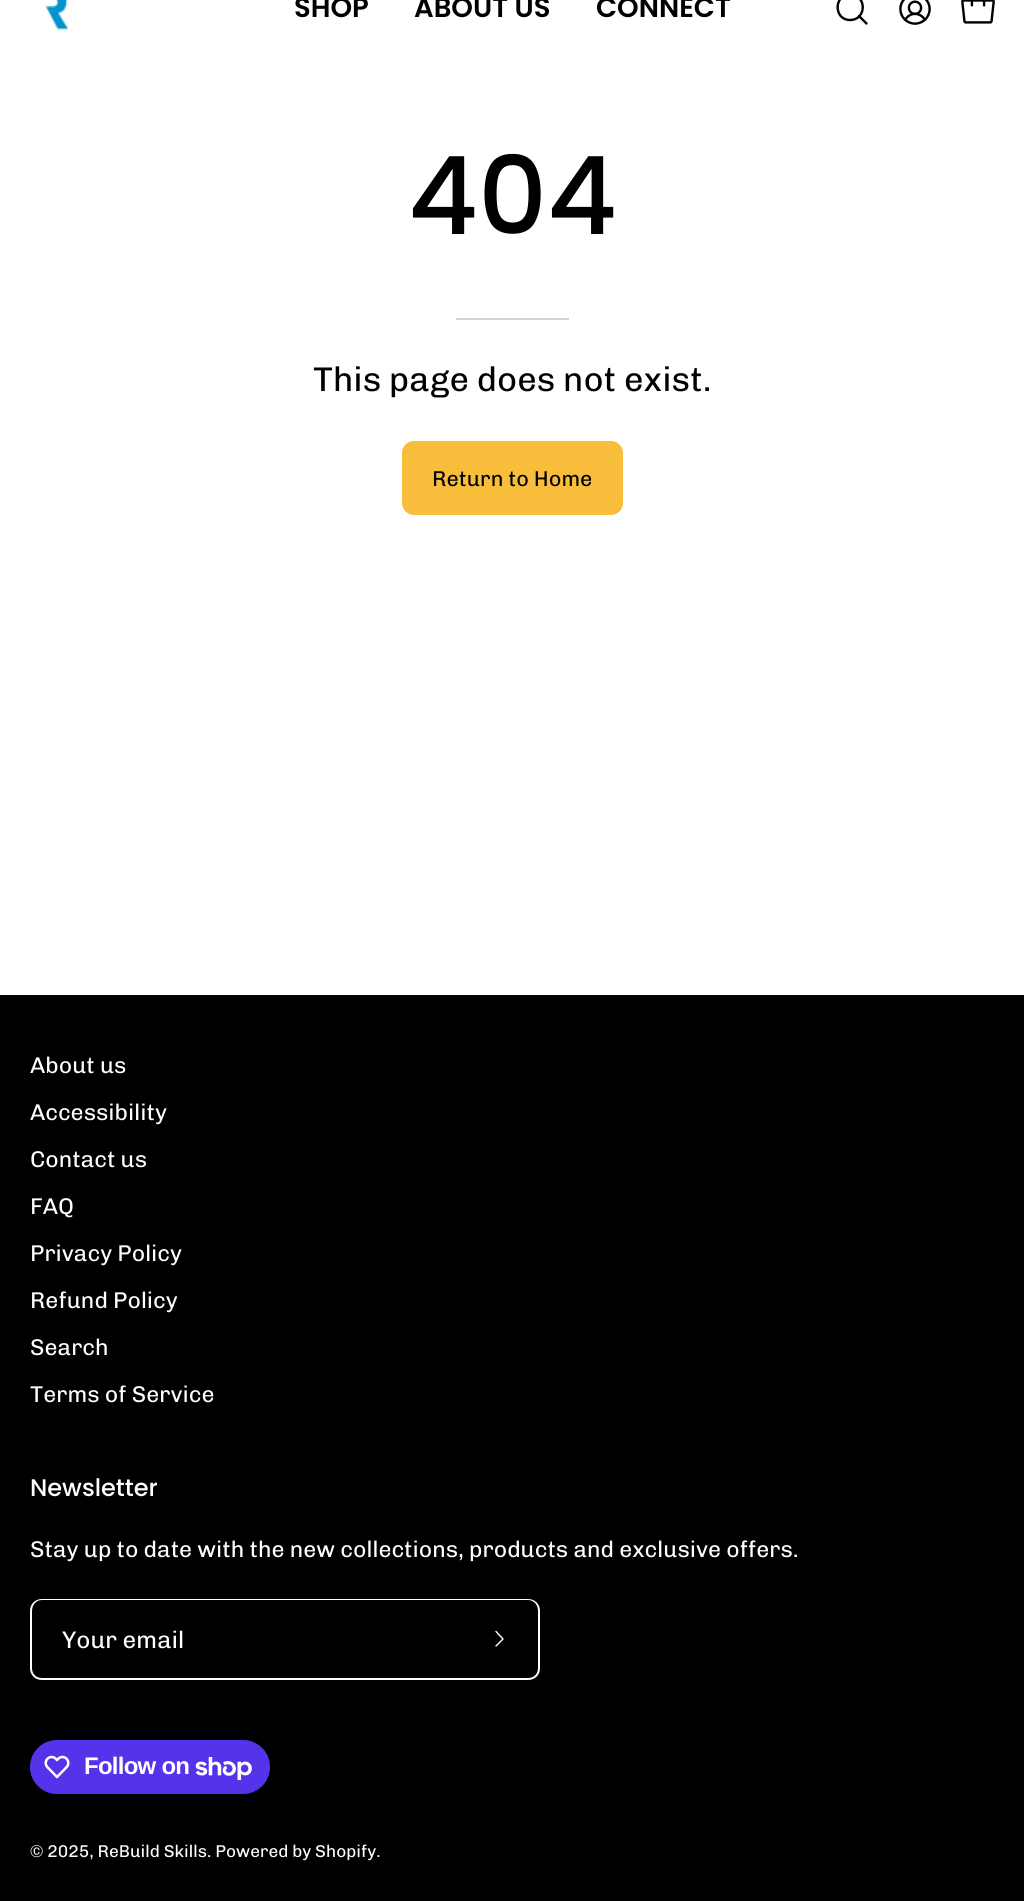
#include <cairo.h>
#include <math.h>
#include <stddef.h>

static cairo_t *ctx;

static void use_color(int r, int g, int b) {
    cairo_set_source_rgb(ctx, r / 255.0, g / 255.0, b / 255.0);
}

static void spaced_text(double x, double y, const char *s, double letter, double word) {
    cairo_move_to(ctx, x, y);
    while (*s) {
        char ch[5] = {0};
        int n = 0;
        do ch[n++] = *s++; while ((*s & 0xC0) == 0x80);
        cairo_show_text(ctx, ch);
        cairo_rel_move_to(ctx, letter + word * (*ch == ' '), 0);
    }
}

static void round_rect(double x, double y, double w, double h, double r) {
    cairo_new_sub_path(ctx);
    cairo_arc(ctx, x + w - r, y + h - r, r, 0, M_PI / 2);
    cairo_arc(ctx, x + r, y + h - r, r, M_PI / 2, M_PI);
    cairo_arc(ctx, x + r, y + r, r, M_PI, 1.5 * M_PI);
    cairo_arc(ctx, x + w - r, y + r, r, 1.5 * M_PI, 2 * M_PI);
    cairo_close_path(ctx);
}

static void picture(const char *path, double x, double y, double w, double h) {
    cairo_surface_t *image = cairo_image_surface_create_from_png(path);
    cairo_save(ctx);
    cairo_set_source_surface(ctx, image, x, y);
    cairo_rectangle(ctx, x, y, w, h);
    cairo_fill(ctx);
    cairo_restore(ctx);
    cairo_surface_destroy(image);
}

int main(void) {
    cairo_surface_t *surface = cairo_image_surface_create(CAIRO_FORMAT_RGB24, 1024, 1901);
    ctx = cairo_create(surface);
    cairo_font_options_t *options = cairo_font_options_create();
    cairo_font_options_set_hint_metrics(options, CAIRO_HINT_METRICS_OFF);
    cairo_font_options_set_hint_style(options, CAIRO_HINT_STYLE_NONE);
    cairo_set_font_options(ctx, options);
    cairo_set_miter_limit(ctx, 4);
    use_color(255, 255, 255);
    cairo_paint(ctx);
    picture("img1.png", 45, 0, 24, 31);
    cairo_select_font_face(ctx, "Poppins SemiBold", CAIRO_FONT_SLANT_NORMAL, CAIRO_FONT_WEIGHT_NORMAL);
    cairo_set_font_size(ctx, 27.5);
    use_color(0, 0, 0);
    cairo_move_to(ctx, 294, 17);
    cairo_show_text(ctx, "SHOP");
    cairo_move_to(ctx, 414, 17);
    cairo_show_text(ctx, "ABOUT US");
    cairo_move_to(ctx, 596, 17);
    cairo_show_text(ctx, "CONNECT");
    cairo_new_path(ctx);
    cairo_move_to(ctx, 850, 20);
    cairo_curve_to(ctx, 867, 20, 867, -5.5, 850, -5.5);
    cairo_curve_to(ctx, 833.5, -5.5, 833.5, 20, 850, 20);
    cairo_close_path(ctx);
    cairo_move_to(ctx, 859, 16);
    cairo_line_to(ctx, 866.5, 23.5);
    cairo_set_line_width(ctx, 2.4);
    cairo_set_line_cap(ctx, CAIRO_LINE_CAP_ROUND);
    cairo_set_line_join(ctx, CAIRO_LINE_JOIN_ROUND);
    cairo_stroke(ctx);
    picture("img2.png", 899, 0, 32, 25);
    picture("img3.png", 961, 0, 34, 24);
    cairo_select_font_face(ctx, "Poppins Medium", CAIRO_FONT_SLANT_NORMAL, CAIRO_FONT_WEIGHT_NORMAL);
    cairo_set_font_size(ctx, 108);
    cairo_move_to(ctx, 408, 234);
    cairo_show_text(ctx, "404");
    use_color(211, 211, 211);
    cairo_rectangle(ctx, 456, 318, 113, 2);
    cairo_fill(ctx);
    cairo_select_font_face(ctx, "Chivo", CAIRO_FONT_SLANT_NORMAL, CAIRO_FONT_WEIGHT_NORMAL);
    cairo_set_font_size(ctx, 34.25);
    use_color(0, 0, 0);
    cairo_move_to(ctx, 313, 391);
    cairo_show_text(ctx, "This page does not exist.");
    use_color(248, 190, 59);
    round_rect(402, 441, 221, 74, 12);
    cairo_fill(ctx);
    cairo_set_font_size(ctx, 21.5);
    use_color(0, 0, 0);
    cairo_move_to(ctx, 432, 486);
    cairo_show_text(ctx, "Return to Home");
    cairo_rectangle(ctx, 0, 995, 1024, 906);
    cairo_fill(ctx);
    cairo_set_font_size(ctx, 22.8);
    use_color(255, 255, 255);
    cairo_move_to(ctx, 30, 1073);
    cairo_show_text(ctx, "About us");
    cairo_move_to(ctx, 30, 1120);
    cairo_show_text(ctx, "Accessibility");
    cairo_move_to(ctx, 30, 1167);
    cairo_show_text(ctx, "Contact us");
    cairo_move_to(ctx, 30, 1214);
    cairo_show_text(ctx, "FAQ");
    cairo_move_to(ctx, 30, 1261);
    cairo_show_text(ctx, "Privacy Policy");
    cairo_move_to(ctx, 30, 1308);
    cairo_show_text(ctx, "Refund Policy");
    cairo_move_to(ctx, 30, 1355);
    cairo_show_text(ctx, "Search");
    cairo_move_to(ctx, 30, 1402);
    cairo_show_text(ctx, "Terms of Service");
    cairo_select_font_face(ctx, "Poppins Medium", CAIRO_FONT_SLANT_NORMAL, CAIRO_FONT_WEIGHT_NORMAL);
    cairo_set_font_size(ctx, 24);
    cairo_move_to(ctx, 30, 1496);
    cairo_show_text(ctx, "Newsletter");
    cairo_select_font_face(ctx, "Chivo", CAIRO_FONT_SLANT_NORMAL, CAIRO_FONT_WEIGHT_NORMAL);
    cairo_set_font_size(ctx, 22.8);
    cairo_move_to(ctx, 30, 1557);
    cairo_show_text(ctx, "Stay up to date with the new collections, products and exclusive offers.");
    cairo_set_fill_rule(ctx, CAIRO_FILL_RULE_EVEN_ODD);
    cairo_new_path(ctx);
    cairo_move_to(ctx, 42, 1599);
    cairo_line_to(ctx, 459, 1599);
    cairo_line_to(ctx, 459, 1680);
    cairo_line_to(ctx, 42, 1680);
    cairo_curve_to(ctx, 35, 1680, 30, 1675, 30, 1668);
    cairo_line_to(ctx, 30, 1611);
    cairo_curve_to(ctx, 30, 1604, 35, 1599, 42, 1599);
    cairo_close_path(ctx);
    cairo_move_to(ctx, 42, 1600);
    cairo_line_to(ctx, 459, 1600);
    cairo_line_to(ctx, 459, 1678);
    cairo_line_to(ctx, 42, 1678);
    cairo_curve_to(ctx, 36, 1678, 32, 1674, 32, 1668);
    cairo_line_to(ctx, 32, 1611);
    cairo_curve_to(ctx, 32, 1605, 36, 1600, 42, 1600);
    cairo_close_path(ctx);
    cairo_fill(ctx);
    cairo_set_font_size(ctx, 24);
    cairo_move_to(ctx, 62, 1648);
    cairo_show_text(ctx, "Your email");
    cairo_new_path(ctx);
    cairo_move_to(ctx, 459, 1599);
    cairo_line_to(ctx, 528, 1599);
    cairo_curve_to(ctx, 535, 1599, 540, 1604, 540, 1611);
    cairo_line_to(ctx, 540, 1668);
    cairo_curve_to(ctx, 540, 1675, 535, 1680, 528, 1680);
    cairo_line_to(ctx, 459, 1680);
    cairo_close_path(ctx);
    cairo_move_to(ctx, 459, 1600);
    cairo_line_to(ctx, 528, 1600);
    cairo_curve_to(ctx, 534, 1600, 538, 1605, 538, 1611);
    cairo_line_to(ctx, 538, 1668);
    cairo_curve_to(ctx, 538, 1674, 534, 1678, 528, 1678);
    cairo_line_to(ctx, 459, 1678);
    cairo_close_path(ctx);
    cairo_fill(ctx);
    cairo_new_path(ctx);
    cairo_move_to(ctx, 496, 1631.5);
    cairo_line_to(ctx, 503, 1639);
    cairo_line_to(ctx, 496, 1646);
    cairo_set_line_width(ctx, 1.4);
    cairo_stroke(ctx);
    use_color(84, 51, 235);
    round_rect(30, 1740, 240, 54, 27);
    cairo_fill(ctx);
    picture("img4.png", 44, 1755, 26, 24);
    cairo_select_font_face(ctx, "Liberation Sans", CAIRO_FONT_SLANT_NORMAL, CAIRO_FONT_WEIGHT_BOLD);
    use_color(255, 255, 255);
    spaced_text(84, 1774, "Follow on", -0.75, 0);
    picture("img5.png", 195, 1757, 57, 23);
    cairo_select_font_face(ctx, "Chivo", CAIRO_FONT_SLANT_NORMAL, CAIRO_FONT_WEIGHT_NORMAL);
    cairo_set_font_size(ctx, 17.1);
    cairo_move_to(ctx, 30, 1857);
    cairo_show_text(ctx, "© 2025, ReBuild Skills. Powered by Shopify.");
    cairo_surface_write_to_png(surface, "result.png");
    cairo_font_options_destroy(options);
    cairo_destroy(ctx);
    cairo_surface_destroy(surface);
    return 0;
}
